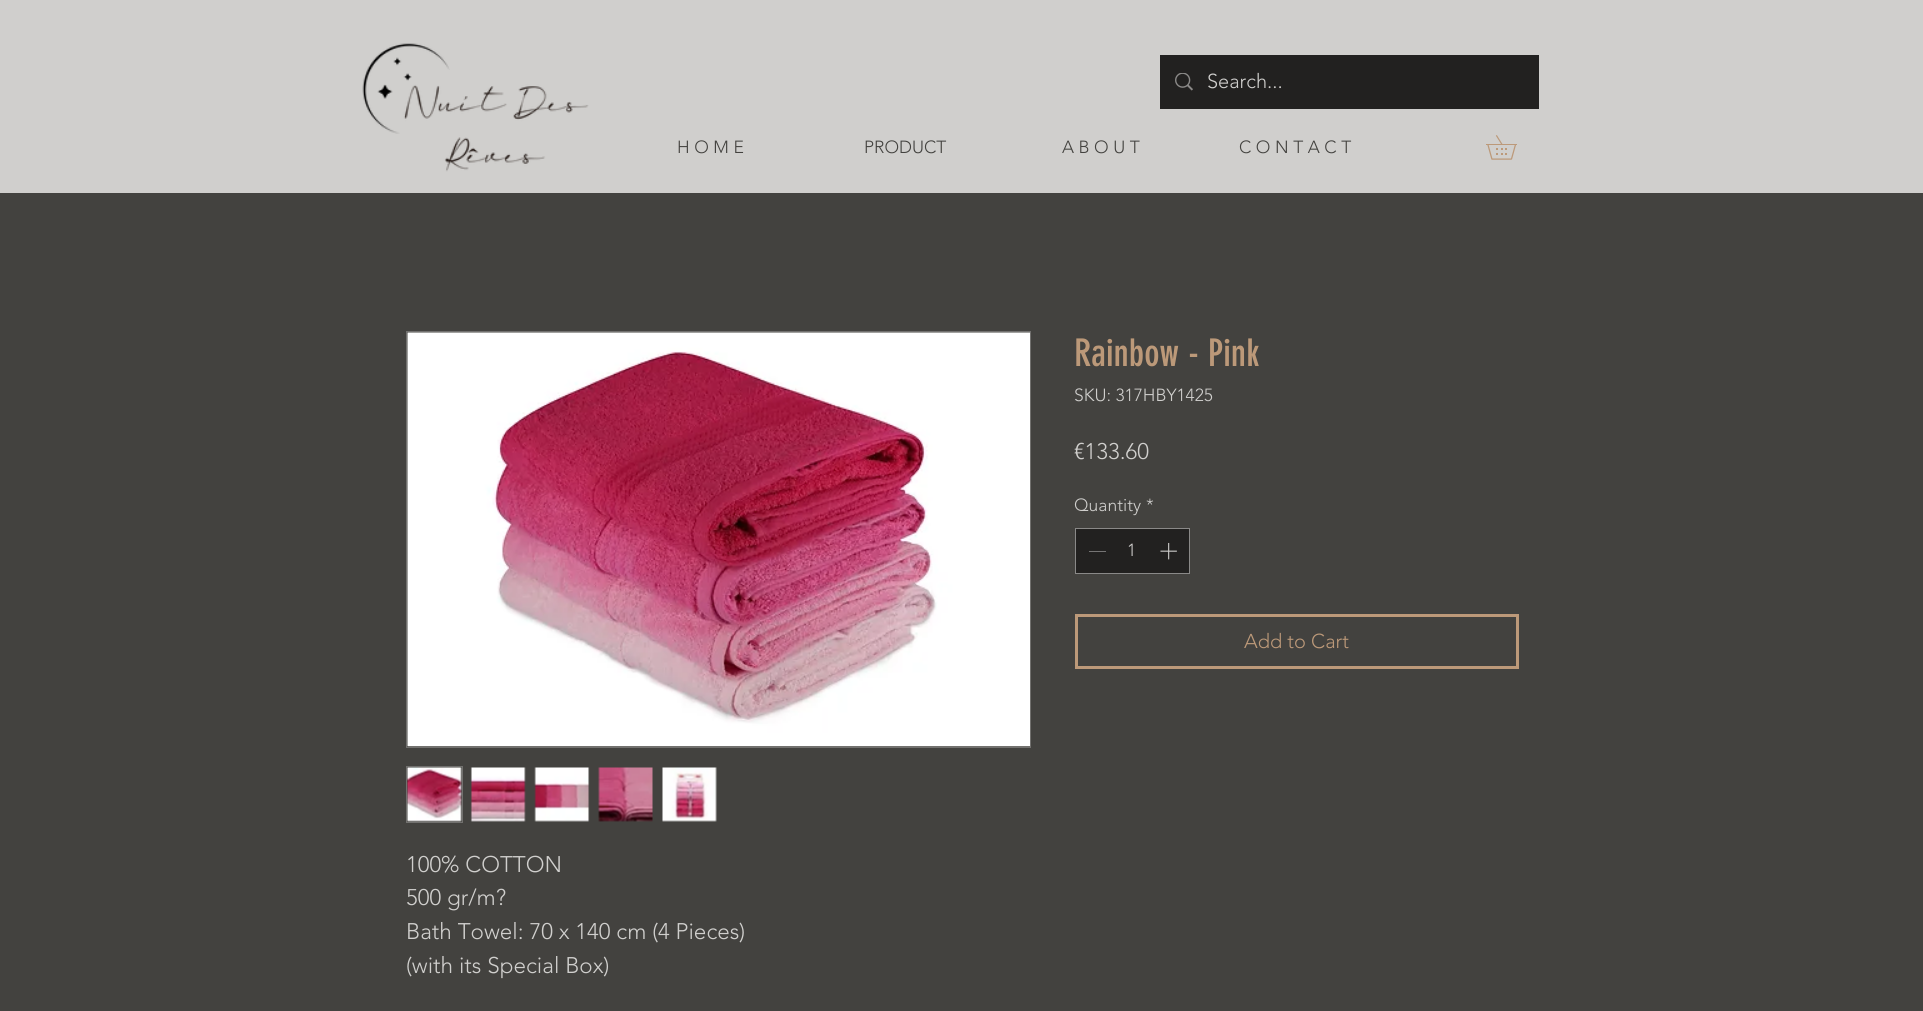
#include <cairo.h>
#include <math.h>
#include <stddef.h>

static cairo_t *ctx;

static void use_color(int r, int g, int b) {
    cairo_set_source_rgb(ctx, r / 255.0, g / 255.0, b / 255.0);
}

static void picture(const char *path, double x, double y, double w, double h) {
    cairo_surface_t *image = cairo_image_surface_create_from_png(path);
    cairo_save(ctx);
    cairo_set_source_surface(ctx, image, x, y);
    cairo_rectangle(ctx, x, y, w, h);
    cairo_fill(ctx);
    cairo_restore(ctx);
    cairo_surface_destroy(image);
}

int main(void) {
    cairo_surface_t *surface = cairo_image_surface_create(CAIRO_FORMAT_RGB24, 1923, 1011);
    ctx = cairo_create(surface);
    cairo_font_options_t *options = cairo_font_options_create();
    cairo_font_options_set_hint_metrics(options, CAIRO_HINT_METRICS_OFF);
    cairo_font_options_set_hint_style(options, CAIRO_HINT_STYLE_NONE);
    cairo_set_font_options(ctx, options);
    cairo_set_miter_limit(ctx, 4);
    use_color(67, 66, 63);
    cairo_paint(ctx);
    use_color(208, 207, 205);
    cairo_rectangle(ctx, 0, 0, 1923, 193);
    cairo_fill(ctx);
    picture("img1.png", 362, 43, 227, 129);
    use_color(34, 33, 32);
    cairo_rectangle(ctx, 1160, 55, 379, 54);
    cairo_fill(ctx);
    picture("img2.png", 1175, 73, 18, 18);
    cairo_select_font_face(ctx, "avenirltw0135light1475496 Light", CAIRO_FONT_SLANT_NORMAL, CAIRO_FONT_WEIGHT_NORMAL);
    cairo_set_font_size(ctx, 20);
    use_color(208, 207, 205);
    cairo_move_to(ctx, 1207, 88);
    cairo_show_text(ctx, "Search...");
    cairo_set_font_size(ctx, 17.5);
    use_color(67, 66, 63);
    cairo_move_to(ctx, 677, 153);
    cairo_show_text(ctx, "H O M E");
    cairo_move_to(ctx, 864, 153);
    cairo_show_text(ctx, "PRODUCT");
    cairo_move_to(ctx, 1062, 153);
    cairo_show_text(ctx, "A B O U T");
    cairo_move_to(ctx, 1239, 153);
    cairo_show_text(ctx, "C O N T A C T");
    picture("img3.png", 1486, 135, 31, 25);
    cairo_select_font_face(ctx, "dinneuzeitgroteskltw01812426", CAIRO_FONT_SLANT_NORMAL, CAIRO_FONT_WEIGHT_NORMAL);
    cairo_set_font_size(ctx, 37.5);
    use_color(188, 153, 121);
    cairo_move_to(ctx, 1074, 366);
    cairo_show_text(ctx, "Rainbow - Pink");
    cairo_select_font_face(ctx, "avenirltw0135light1475496 Light", CAIRO_FONT_SLANT_NORMAL, CAIRO_FONT_WEIGHT_NORMAL);
    cairo_set_font_size(ctx, 17.5);
    use_color(208, 207, 205);
    cairo_move_to(ctx, 1074, 401);
    cairo_show_text(ctx, "SKU: 317HBY1425");
    cairo_set_font_size(ctx, 22.5);
    cairo_move_to(ctx, 1074, 459);
    cairo_show_text(ctx, "€133.60");
    cairo_set_font_size(ctx, 17.5);
    cairo_move_to(ctx, 1074, 511);
    cairo_show_text(ctx, "Quantity");
    cairo_move_to(ctx, 1146, 511);
    cairo_show_text(ctx, "*");
    use_color(34, 33, 32);
    cairo_rectangle(ctx, 1075.5, 528.5, 114, 45);
    cairo_fill_preserve(ctx);
    use_color(138, 137, 136);
    cairo_set_line_width(ctx, 1);
    cairo_stroke(ctx);
    use_color(117, 116, 116);
    cairo_rectangle(ctx, 1089, 551, 17, 1);
    cairo_fill(ctx);
    use_color(208, 207, 205);
    cairo_move_to(ctx, 1127, 556);
    cairo_show_text(ctx, "1");
    picture("img4.png", 1160, 542, 17, 18);
    cairo_rectangle(ctx, 1076.5, 615.5, 441, 52);
    use_color(188, 153, 121);
    cairo_set_line_width(ctx, 3);
    cairo_stroke(ctx);
    cairo_set_font_size(ctx, 20);
    cairo_move_to(ctx, 1244, 648);
    cairo_show_text(ctx, "Add to Cart");
    cairo_rectangle(ctx, 406.5, 331.5, 624, 416);
    use_color(114, 113, 111);
    cairo_set_line_width(ctx, 1);
    cairo_stroke(ctx);
    picture("img5.png", 407, 332, 623, 415);
    cairo_rectangle(ctx, 406.5, 766.5, 56, 56);
    cairo_stroke(ctx);
    picture("img6.png", 407, 767, 55, 55);
    picture("img7.png", 470, 767, 56, 55);
    picture("img8.png", 534, 767, 56, 55);
    picture("img9.png", 598, 767, 55, 55);
    picture("img10.png", 662, 767, 55, 55);
    cairo_set_font_size(ctx, 22.5);
    use_color(208, 207, 205);
    cairo_move_to(ctx, 406, 872);
    cairo_show_text(ctx, "100% COTTON");
    cairo_move_to(ctx, 406, 905);
    cairo_show_text(ctx, "500 gr/m?");
    cairo_move_to(ctx, 406, 939);
    cairo_show_text(ctx, "Bath Towel: 70 x 140 cm (4 Pieces)");
    cairo_move_to(ctx, 406, 973);
    cairo_show_text(ctx, "(with its Special Box)");
    cairo_surface_write_to_png(surface, "result.png");
    cairo_font_options_destroy(options);
    cairo_destroy(ctx);
    cairo_surface_destroy(surface);
    return 0;
}
